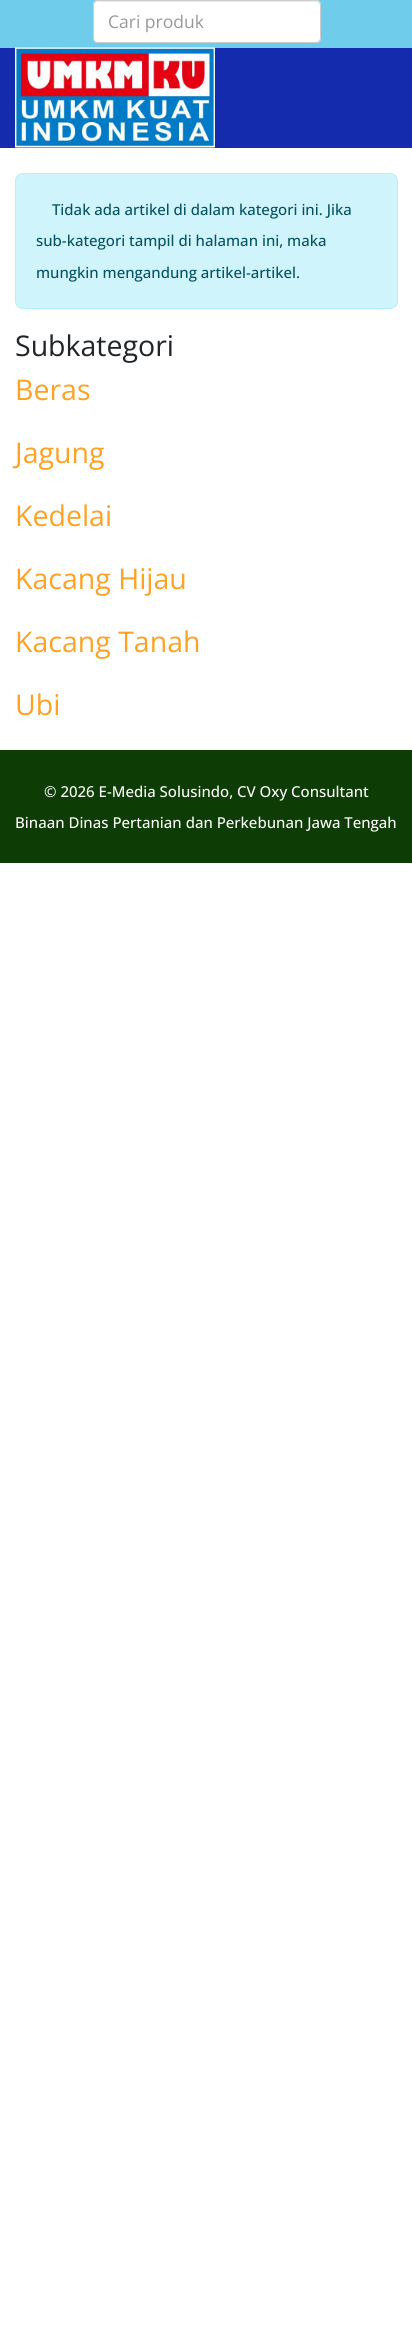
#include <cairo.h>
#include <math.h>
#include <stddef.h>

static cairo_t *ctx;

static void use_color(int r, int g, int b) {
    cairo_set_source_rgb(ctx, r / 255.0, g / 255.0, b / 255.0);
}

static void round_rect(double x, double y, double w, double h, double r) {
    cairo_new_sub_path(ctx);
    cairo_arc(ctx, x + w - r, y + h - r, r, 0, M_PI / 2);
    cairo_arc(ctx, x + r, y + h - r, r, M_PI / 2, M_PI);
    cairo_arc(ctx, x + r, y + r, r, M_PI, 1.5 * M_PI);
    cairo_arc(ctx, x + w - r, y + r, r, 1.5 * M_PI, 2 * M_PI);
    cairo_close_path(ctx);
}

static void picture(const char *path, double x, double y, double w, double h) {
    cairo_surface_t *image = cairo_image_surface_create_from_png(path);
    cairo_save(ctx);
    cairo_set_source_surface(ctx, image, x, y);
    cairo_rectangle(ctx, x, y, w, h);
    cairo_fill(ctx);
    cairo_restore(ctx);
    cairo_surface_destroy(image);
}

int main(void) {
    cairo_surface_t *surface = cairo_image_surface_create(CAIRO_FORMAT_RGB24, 412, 2333);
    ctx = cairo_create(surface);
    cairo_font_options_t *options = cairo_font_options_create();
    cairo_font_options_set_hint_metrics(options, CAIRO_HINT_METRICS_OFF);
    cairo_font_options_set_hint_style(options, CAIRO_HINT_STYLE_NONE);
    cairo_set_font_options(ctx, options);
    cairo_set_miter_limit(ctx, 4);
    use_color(255, 255, 255);
    cairo_paint(ctx);
    use_color(112, 204, 235);
    cairo_rectangle(ctx, 0, 0, 412, 48);
    cairo_fill(ctx);
    use_color(255, 255, 255);
    round_rect(93, 0, 228, 43, 5);
    cairo_fill(ctx);
    use_color(236, 236, 236);
    cairo_new_path(ctx);
    cairo_move_to(ctx, 98, 2);
    cairo_line_to(ctx, 316, 2);
    cairo_curve_to(ctx, 318, 2, 320, 4, 320, 6);
    cairo_curve_to(ctx, 320, 3, 319, 1, 316, 1);
    cairo_line_to(ctx, 98, 1);
    cairo_curve_to(ctx, 95, 1, 94, 3, 94, 6);
    cairo_curve_to(ctx, 94, 4, 95, 2, 98, 2);
    cairo_close_path(ctx);
    cairo_fill(ctx);
    round_rect(93.5, 0.5, 227, 42, 4.5);
    use_color(204, 204, 204);
    cairo_set_line_width(ctx, 1);
    cairo_stroke(ctx);
    cairo_select_font_face(ctx, "Open Sans", CAIRO_FONT_SLANT_NORMAL, CAIRO_FONT_WEIGHT_NORMAL);
    cairo_set_font_size(ctx, 17.5);
    use_color(153, 153, 153);
    cairo_move_to(ctx, 108, 28);
    cairo_show_text(ctx, "Cari produk");
    use_color(19, 43, 172);
    cairo_rectangle(ctx, 0, 48, 412, 100);
    cairo_fill(ctx);
    picture("img1.png", 15, 47, 200, 101);
    use_color(207, 244, 252);
    round_rect(15.5, 173.5, 382, 135, 7.5);
    cairo_fill_preserve(ctx);
    use_color(182, 239, 251);
    cairo_stroke(ctx);
    cairo_select_font_face(ctx, "Open Sans Medium", CAIRO_FONT_SLANT_NORMAL, CAIRO_FONT_WEIGHT_NORMAL);
    cairo_set_font_size(ctx, 15);
    use_color(5, 81, 96);
    cairo_move_to(ctx, 52, 215);
    cairo_show_text(ctx, "Tidak ada artikel di dalam kategori ini. Jika");
    cairo_move_to(ctx, 36, 246);
    cairo_show_text(ctx, "sub-kategori tampil di halaman ini, maka");
    cairo_move_to(ctx, 36, 278);
    cairo_show_text(ctx, "mungkin mengandung artikel-artikel.");
    cairo_select_font_face(ctx, "Open Sans", CAIRO_FONT_SLANT_NORMAL, CAIRO_FONT_WEIGHT_NORMAL);
    cairo_set_font_size(ctx, 28.5);
    use_color(33, 37, 41);
    cairo_move_to(ctx, 15, 356);
    cairo_show_text(ctx, "Subkategori");
    use_color(252, 162, 36);
    cairo_move_to(ctx, 15, 400);
    cairo_show_text(ctx, "Beras");
    cairo_move_to(ctx, 15, 463);
    cairo_show_text(ctx, "Jagung");
    cairo_move_to(ctx, 15, 526);
    cairo_show_text(ctx, "Kedelai");
    cairo_move_to(ctx, 15, 589);
    cairo_show_text(ctx, "Kacang Hijau");
    cairo_move_to(ctx, 15, 652);
    cairo_show_text(ctx, "Kacang Tanah");
    cairo_move_to(ctx, 15, 715);
    cairo_show_text(ctx, "Ubi");
    use_color(13, 61, 4);
    cairo_rectangle(ctx, 0, 750, 412, 113);
    cairo_fill(ctx);
    cairo_select_font_face(ctx, "Open Sans Medium", CAIRO_FONT_SLANT_NORMAL, CAIRO_FONT_WEIGHT_NORMAL);
    cairo_set_font_size(ctx, 15);
    use_color(255, 255, 255);
    cairo_move_to(ctx, 44, 797);
    cairo_show_text(ctx, "© 2026 E-Media Solusindo, CV Oxy Consultant");
    cairo_move_to(ctx, 15, 828);
    cairo_show_text(ctx, "Binaan Dinas Pertanian dan Perkebunan Jawa Tengah");
    cairo_surface_write_to_png(surface, "result.png");
    cairo_font_options_destroy(options);
    cairo_destroy(ctx);
    cairo_surface_destroy(surface);
    return 0;
}
